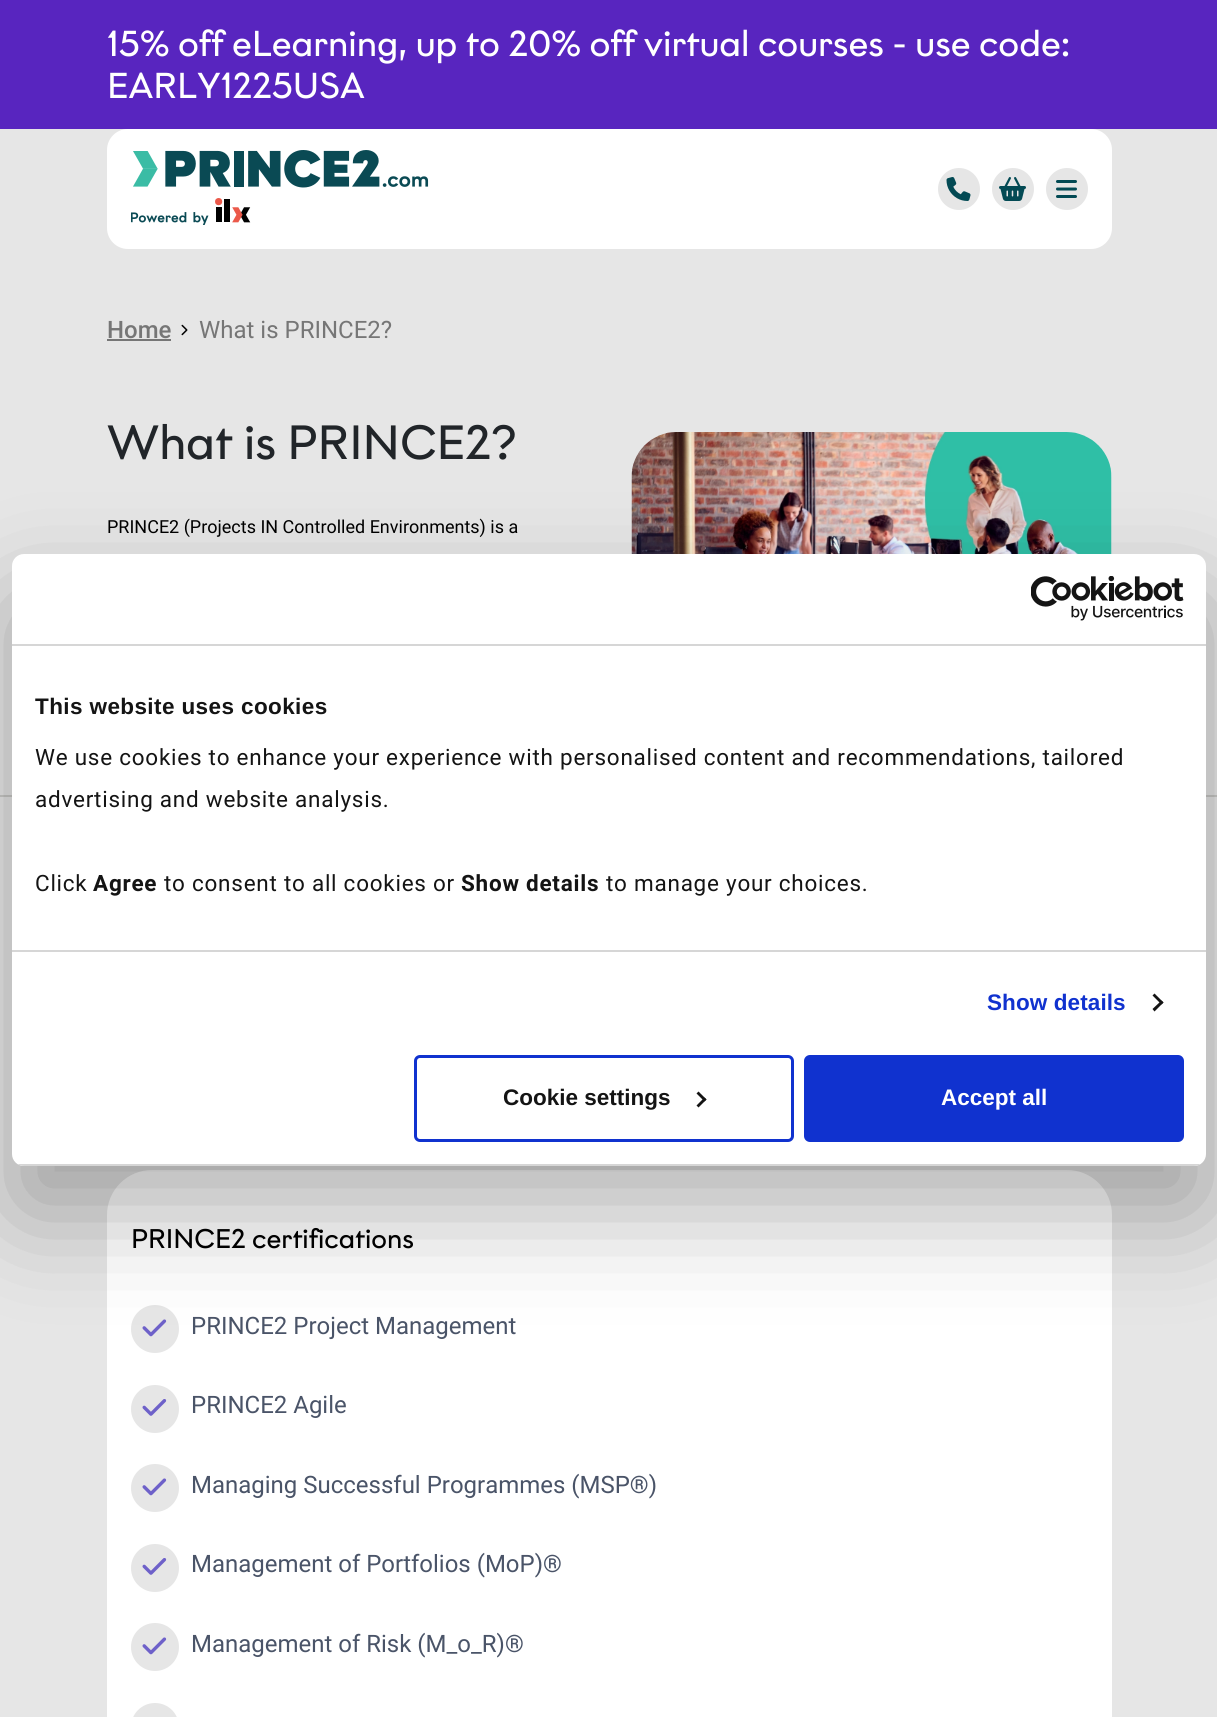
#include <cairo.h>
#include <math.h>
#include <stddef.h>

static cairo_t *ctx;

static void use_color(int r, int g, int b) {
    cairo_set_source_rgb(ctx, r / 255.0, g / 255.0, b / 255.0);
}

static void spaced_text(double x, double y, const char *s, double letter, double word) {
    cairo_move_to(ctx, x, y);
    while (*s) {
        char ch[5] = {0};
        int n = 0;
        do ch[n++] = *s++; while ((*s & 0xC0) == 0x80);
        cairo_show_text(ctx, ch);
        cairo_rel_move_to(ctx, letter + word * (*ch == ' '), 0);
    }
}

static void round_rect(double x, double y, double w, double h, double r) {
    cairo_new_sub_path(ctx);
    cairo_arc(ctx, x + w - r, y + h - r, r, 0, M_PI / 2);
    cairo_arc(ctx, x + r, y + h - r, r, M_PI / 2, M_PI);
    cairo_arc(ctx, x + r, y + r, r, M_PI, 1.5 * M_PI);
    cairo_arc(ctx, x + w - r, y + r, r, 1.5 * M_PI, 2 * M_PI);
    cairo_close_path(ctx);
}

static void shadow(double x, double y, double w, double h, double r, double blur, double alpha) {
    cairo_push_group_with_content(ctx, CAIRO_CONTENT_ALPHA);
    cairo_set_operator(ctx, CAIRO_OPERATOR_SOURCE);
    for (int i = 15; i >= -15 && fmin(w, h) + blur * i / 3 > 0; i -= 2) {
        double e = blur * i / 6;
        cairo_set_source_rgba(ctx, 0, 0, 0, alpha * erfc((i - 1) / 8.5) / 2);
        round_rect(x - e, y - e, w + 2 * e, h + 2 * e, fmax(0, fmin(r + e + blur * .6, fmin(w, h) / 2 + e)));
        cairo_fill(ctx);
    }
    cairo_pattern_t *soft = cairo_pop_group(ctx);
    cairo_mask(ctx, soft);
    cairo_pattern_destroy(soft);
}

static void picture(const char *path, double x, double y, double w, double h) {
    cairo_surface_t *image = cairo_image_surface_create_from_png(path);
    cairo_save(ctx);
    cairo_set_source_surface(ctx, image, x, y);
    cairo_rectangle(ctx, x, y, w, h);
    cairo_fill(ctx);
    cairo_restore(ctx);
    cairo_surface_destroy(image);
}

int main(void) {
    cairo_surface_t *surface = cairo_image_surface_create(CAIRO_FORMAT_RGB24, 1217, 1717);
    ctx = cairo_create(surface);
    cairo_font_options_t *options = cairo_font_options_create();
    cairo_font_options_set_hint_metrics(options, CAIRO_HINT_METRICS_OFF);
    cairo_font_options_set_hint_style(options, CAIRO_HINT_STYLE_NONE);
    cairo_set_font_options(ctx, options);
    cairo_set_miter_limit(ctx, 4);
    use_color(230, 230, 230);
    cairo_paint(ctx);
    use_color(88, 37, 191);
    cairo_rectangle(ctx, 0, 0, 1217, 129);
    cairo_fill(ctx);
    cairo_select_font_face(ctx, "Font", CAIRO_FONT_SLANT_NORMAL, CAIRO_FONT_WEIGHT_NORMAL);
    cairo_set_font_size(ctx, 36);
    use_color(255, 255, 255);
    cairo_move_to(ctx, 107, 56);
    cairo_show_text(ctx, "15% off eLearning, up to 20% off virtual courses - use code:");
    cairo_move_to(ctx, 107, 98);
    cairo_show_text(ctx, "EARLY1225USA");
    round_rect(107, 129, 1005, 120, 21);
    cairo_fill(ctx);
    picture("img1.png", 133, 150, 296, 38);
    picture("img2.png", 131, 198, 120, 27);
    use_color(230, 230, 230);
    cairo_arc(ctx, 959, 189, 21, 0, 2 * M_PI);
    cairo_fill(ctx);
    picture("img3.png", 946, 177, 25, 24);
    cairo_arc(ctx, 1013, 189, 21, 0, 2 * M_PI);
    cairo_fill(ctx);
    picture("img4.png", 999, 177, 27, 24);
    cairo_arc(ctx, 1067, 189, 21, 0, 2 * M_PI);
    cairo_fill(ctx);
    picture("img5.png", 1056, 180, 21, 18);
    cairo_select_font_face(ctx, "Roboto Medium", CAIRO_FONT_SLANT_NORMAL, CAIRO_FONT_WEIGHT_NORMAL);
    cairo_set_font_size(ctx, 24);
    use_color(118, 118, 118);
    cairo_move_to(ctx, 107, 338);
    cairo_show_text(ctx, "Home");
    cairo_rectangle(ctx, 107, 339, 64, 2);
    cairo_fill(ctx);
    picture("img6.png", 181, 324, 7, 12);
    cairo_select_font_face(ctx, "Roboto", CAIRO_FONT_SLANT_NORMAL, CAIRO_FONT_WEIGHT_NORMAL);
    cairo_move_to(ctx, 199, 338);
    cairo_show_text(ctx, "What is PRINCE2?");
    use_color(200, 200, 198);
    cairo_rectangle(ctx, 0, 795, 1217, 2);
    cairo_fill(ctx);
    cairo_select_font_face(ctx, "Font", CAIRO_FONT_SLANT_NORMAL, CAIRO_FONT_WEIGHT_NORMAL);
    cairo_set_font_size(ctx, 48);
    use_color(33, 37, 41);
    cairo_move_to(ctx, 107, 459);
    cairo_show_text(ctx, "What is PRINCE2?");
    cairo_select_font_face(ctx, "Roboto", CAIRO_FONT_SLANT_NORMAL, CAIRO_FONT_WEIGHT_NORMAL);
    cairo_set_font_size(ctx, 18);
    use_color(0, 0, 0);
    cairo_move_to(ctx, 107, 533);
    cairo_show_text(ctx, "PRINCE2 (Projects IN Controlled Environments) is a");
    picture("img7.png", 631, 432, 481, 122);
    use_color(255, 255, 255);
    round_rect(107, 1170, 1005, 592, 45);
    cairo_fill(ctx);
    cairo_select_font_face(ctx, "Font", CAIRO_FONT_SLANT_NORMAL, CAIRO_FONT_WEIGHT_NORMAL);
    cairo_set_font_size(ctx, 27);
    use_color(0, 0, 0);
    cairo_move_to(ctx, 131, 1248);
    cairo_show_text(ctx, "PRINCE2 certifications");
    use_color(230, 230, 230);
    cairo_new_path(ctx);
    cairo_arc(ctx, 155, 1329, 24, 0, 2 * M_PI);
    cairo_fill(ctx);
    picture("img8.png", 142, 1319, 25, 18);
    cairo_select_font_face(ctx, "Roboto", CAIRO_FONT_SLANT_NORMAL, CAIRO_FONT_WEIGHT_NORMAL);
    cairo_set_font_size(ctx, 24);
    use_color(74, 84, 104);
    cairo_move_to(ctx, 191, 1334);
    cairo_show_text(ctx, "PRINCE2 Project Management");
    use_color(230, 230, 230);
    cairo_new_path(ctx);
    cairo_arc(ctx, 155, 1409, 24, 0, 2 * M_PI);
    cairo_fill(ctx);
    picture("img9.png", 142, 1399, 25, 17);
    use_color(74, 84, 104);
    cairo_move_to(ctx, 191, 1413);
    cairo_show_text(ctx, "PRINCE2 Agile");
    use_color(230, 230, 230);
    cairo_new_path(ctx);
    cairo_arc(ctx, 155, 1488, 24, 0, 2 * M_PI);
    cairo_fill(ctx);
    picture("img8.png", 142, 1478, 25, 18);
    use_color(74, 84, 104);
    cairo_move_to(ctx, 191, 1493);
    cairo_show_text(ctx, "Managing Successful Programmes (MSP®)");
    use_color(230, 230, 230);
    cairo_new_path(ctx);
    cairo_arc(ctx, 155, 1568, 24, 0, 2 * M_PI);
    cairo_fill(ctx);
    picture("img9.png", 142, 1558, 25, 17);
    use_color(74, 84, 104);
    cairo_move_to(ctx, 191, 1572);
    cairo_show_text(ctx, "Management of Portfolios (MoP)®");
    use_color(230, 230, 230);
    cairo_new_path(ctx);
    cairo_arc(ctx, 155, 1647, 24, 0, 2 * M_PI);
    cairo_fill(ctx);
    picture("img8.png", 142, 1637, 25, 18);
    use_color(74, 84, 104);
    cairo_move_to(ctx, 191, 1652);
    cairo_show_text(ctx, "Management of Risk (M_o_R)®");
    use_color(230, 230, 230);
    round_rect(131, 1703, 48, 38, 24);
    cairo_fill(ctx);
    use_color(0, 0, 0);
    shadow(12, 602, 1194, 612, 12, 51, 0.3);
    use_color(255, 255, 255);
    round_rect(12, 554, 1194, 612, 12);
    cairo_fill(ctx);
    use_color(214, 214, 214);
    cairo_rectangle(ctx, 12, 644, 1194, 2);
    cairo_fill(ctx);
    picture("img10.png", 1031, 576, 153, 45);
    cairo_rectangle(ctx, 12, 950, 1194, 2);
    cairo_fill(ctx);
    cairo_select_font_face(ctx, "Liberation Sans", CAIRO_FONT_SLANT_NORMAL, CAIRO_FONT_WEIGHT_BOLD);
    cairo_set_font_size(ctx, 22.5);
    use_color(20, 20, 20);
    spaced_text(35, 714, "This website uses cookies", 0.4, 0);
    cairo_select_font_face(ctx, "Roboto", CAIRO_FONT_SLANT_NORMAL, CAIRO_FONT_WEIGHT_NORMAL);
    spaced_text(35, 765, "We use cookies to enhance your experience with personalised content and recommendations, tailored", 0.75, 0);
    spaced_text(35, 807, "advertising and website analysis.", 0.75, 0);
    spaced_text(35, 891, "Click", 0.75, 0);
    cairo_select_font_face(ctx, "Roboto", CAIRO_FONT_SLANT_NORMAL, CAIRO_FONT_WEIGHT_BOLD);
    spaced_text(93, 891, "Agree", 0.75, 0);
    cairo_select_font_face(ctx, "Roboto", CAIRO_FONT_SLANT_NORMAL, CAIRO_FONT_WEIGHT_NORMAL);
    spaced_text(164, 891, "to consent to all cookies or", 0.75, 0);
    cairo_select_font_face(ctx, "Roboto", CAIRO_FONT_SLANT_NORMAL, CAIRO_FONT_WEIGHT_BOLD);
    spaced_text(461, 891, "Show details", 0.75, 0);
    cairo_select_font_face(ctx, "Roboto", CAIRO_FONT_SLANT_NORMAL, CAIRO_FONT_WEIGHT_NORMAL);
    spaced_text(606, 891, "to manage your choices.", 0.75, 0);
    cairo_select_font_face(ctx, "Liberation Sans", CAIRO_FONT_SLANT_NORMAL, CAIRO_FONT_WEIGHT_BOLD);
    use_color(16, 50, 207);
    spaced_text(987, 1010, "Show details", 0.1, 0);
    use_color(20, 20, 20);
    cairo_new_path(ctx);
    cairo_move_to(ctx, 1154.5, 993.5);
    cairo_line_to(ctx, 1163.5, 1002.5);
    cairo_line_to(ctx, 1161.5, 1004.5);
    cairo_line_to(ctx, 1152.5, 995.5);
    cairo_close_path(ctx);
    cairo_fill(ctx);
    cairo_new_path(ctx);
    cairo_move_to(ctx, 1161.5, 1000.5);
    cairo_line_to(ctx, 1163.5, 1002.5);
    cairo_line_to(ctx, 1154.5, 1011.5);
    cairo_line_to(ctx, 1152.5, 1009);
    cairo_close_path(ctx);
    cairo_fill(ctx);
    cairo_save(ctx);
    round_rect(12, 554, 1194, 612, 12);
    cairo_clip(ctx);
    use_color(214, 214, 214);
    cairo_rectangle(ctx, 12, 1164, 1194, 2);
    cairo_fill(ctx);
    cairo_restore(ctx);
    round_rect(415.5, 1056.5, 377, 84, 4.5);
    use_color(16, 50, 207);
    cairo_set_line_width(ctx, 3);
    cairo_stroke(ctx);
    use_color(20, 20, 20);
    cairo_move_to(ctx, 503, 1105);
    cairo_show_text(ctx, "Cookie settings");
    cairo_new_path(ctx);
    cairo_move_to(ctx, 698.5, 1091.5);
    cairo_line_to(ctx, 706.5, 1099.5);
    cairo_line_to(ctx, 704.5, 1101.5);
    cairo_line_to(ctx, 696.5, 1093.5);
    cairo_close_path(ctx);
    cairo_fill(ctx);
    cairo_new_path(ctx);
    cairo_move_to(ctx, 704.5, 1097.5);
    cairo_line_to(ctx, 706.5, 1099.5);
    cairo_line_to(ctx, 698.5, 1107.5);
    cairo_line_to(ctx, 696.5, 1105.5);
    cairo_close_path(ctx);
    cairo_fill(ctx);
    use_color(16, 50, 207);
    round_rect(805.5, 1056.5, 377, 84, 4.5);
    cairo_fill_preserve(ctx);
    cairo_stroke(ctx);
    use_color(255, 255, 255);
    cairo_move_to(ctx, 941, 1105);
    cairo_show_text(ctx, "Accept all");
    cairo_surface_write_to_png(surface, "result.png");
    cairo_font_options_destroy(options);
    cairo_destroy(ctx);
    cairo_surface_destroy(surface);
    return 0;
}
